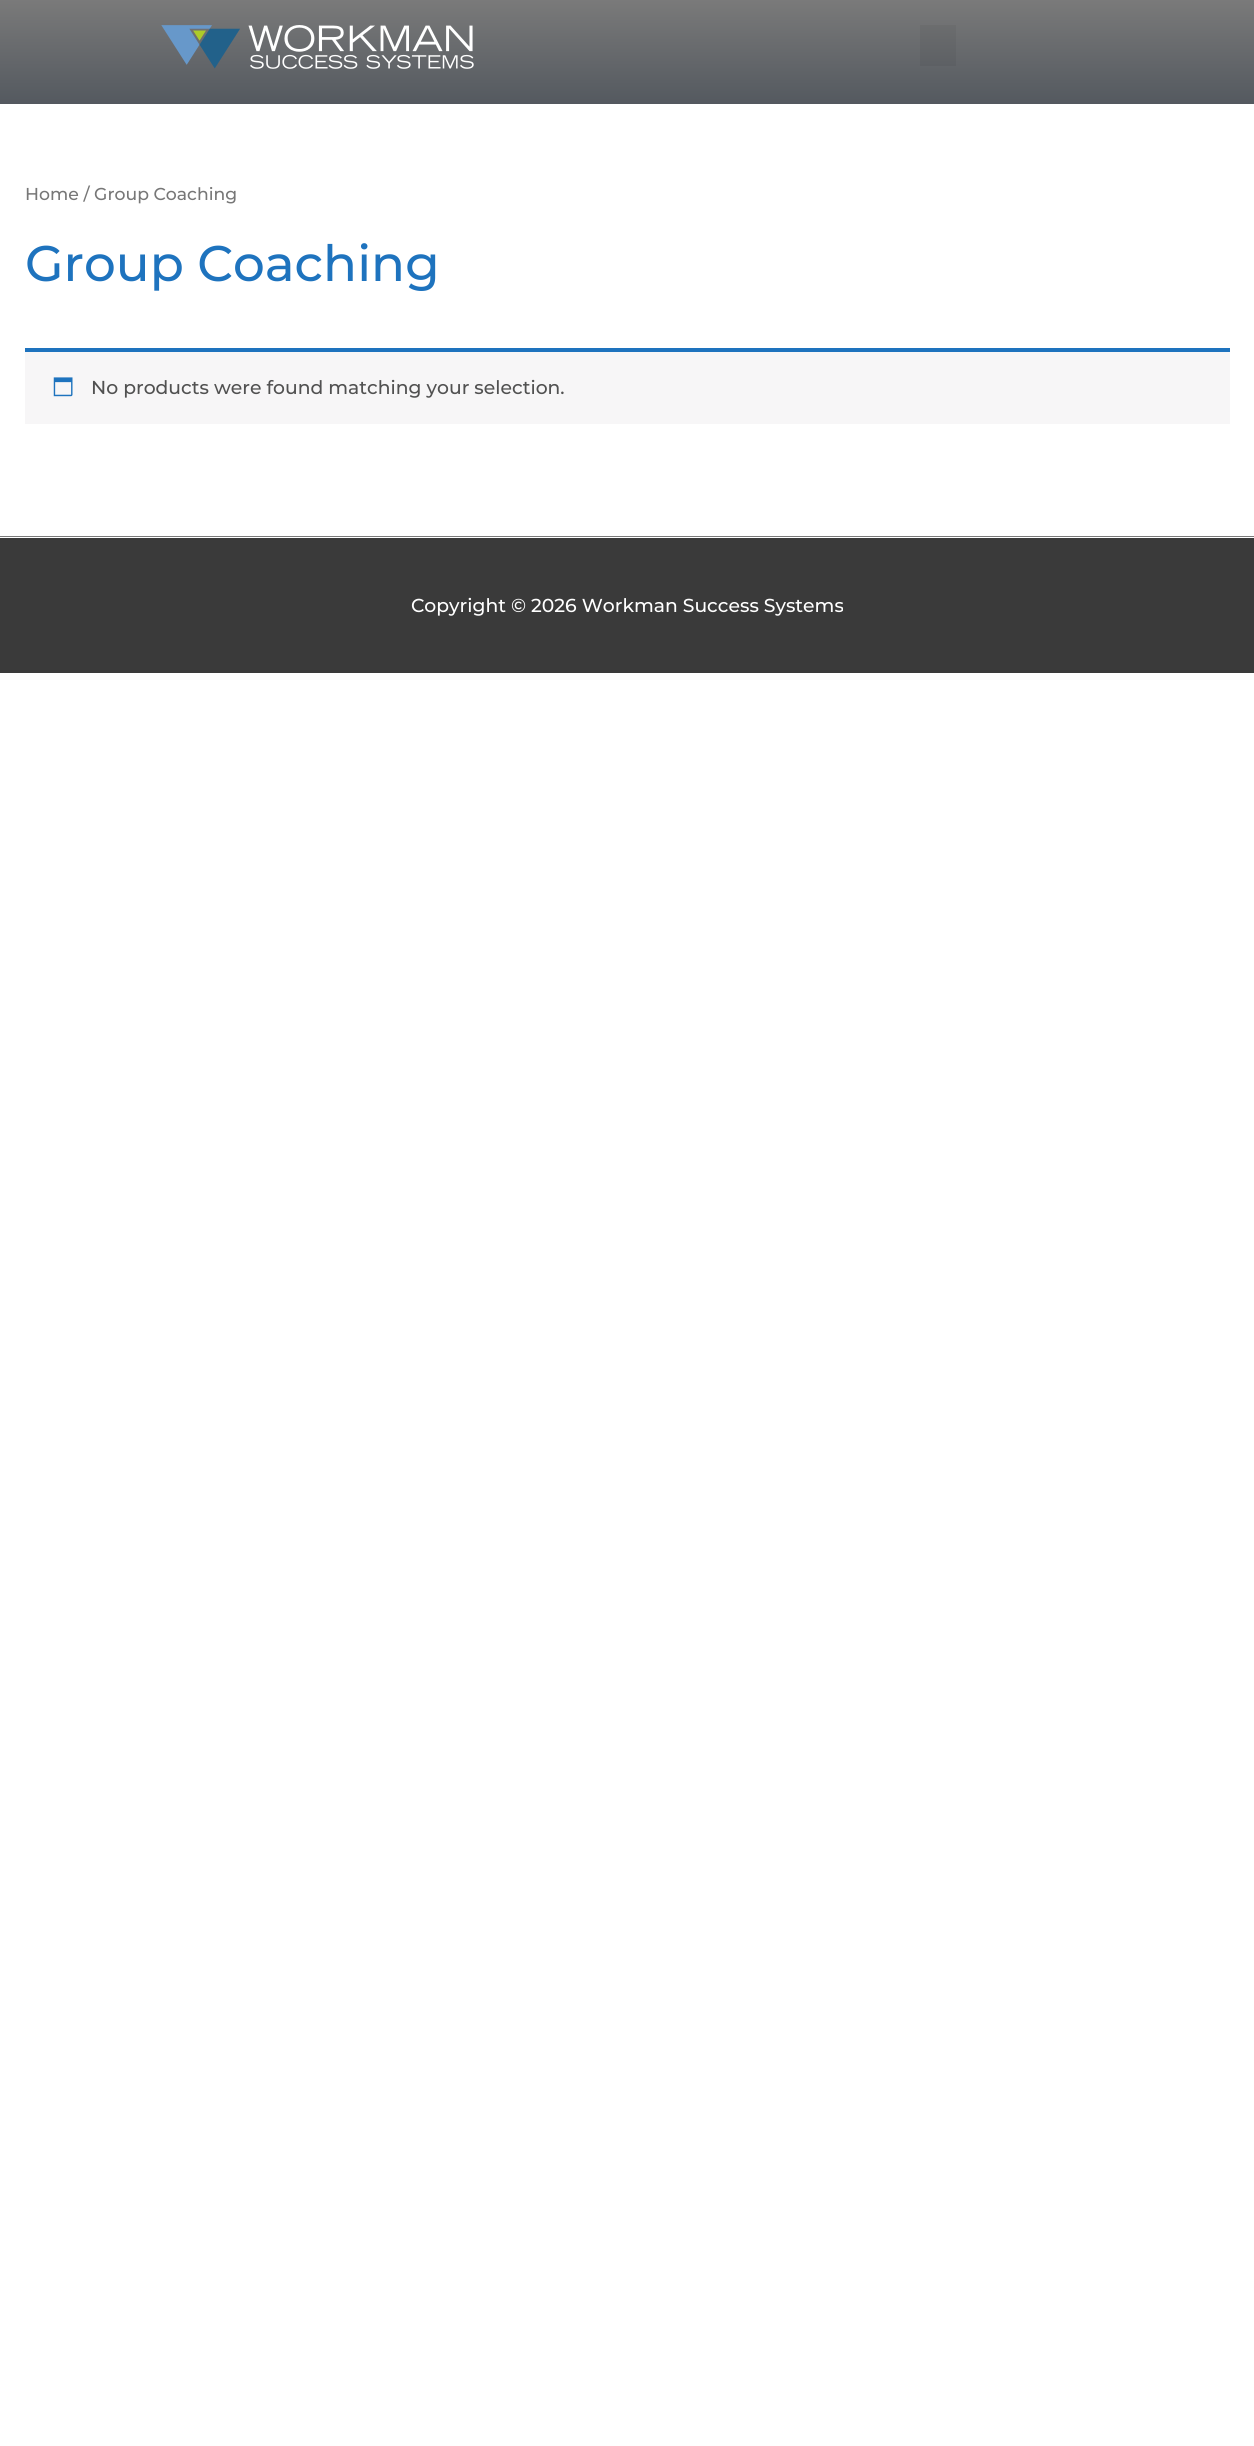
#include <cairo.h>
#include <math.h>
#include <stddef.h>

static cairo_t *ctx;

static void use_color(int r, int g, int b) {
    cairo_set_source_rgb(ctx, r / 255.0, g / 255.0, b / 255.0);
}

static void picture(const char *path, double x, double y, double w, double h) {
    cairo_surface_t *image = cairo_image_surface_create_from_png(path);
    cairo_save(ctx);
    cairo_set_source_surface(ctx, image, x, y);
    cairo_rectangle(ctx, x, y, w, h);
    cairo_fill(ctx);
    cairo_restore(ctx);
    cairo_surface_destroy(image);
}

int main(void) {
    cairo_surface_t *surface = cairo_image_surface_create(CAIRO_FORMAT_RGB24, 1254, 2446);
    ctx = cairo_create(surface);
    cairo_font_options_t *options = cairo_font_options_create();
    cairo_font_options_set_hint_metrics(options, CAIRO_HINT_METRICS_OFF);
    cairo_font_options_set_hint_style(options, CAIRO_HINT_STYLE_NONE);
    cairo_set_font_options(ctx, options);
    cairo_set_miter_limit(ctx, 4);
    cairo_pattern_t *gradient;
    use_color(255, 255, 255);
    cairo_paint(ctx);
    gradient = cairo_pattern_create_linear(628, 0, 628, 104);
    cairo_pattern_add_color_stop_rgba(gradient, 0, 0.478, 0.478, 0.478, 1);
    cairo_pattern_add_color_stop_rgba(gradient, 1, 0.329, 0.349, 0.373, 1);
    cairo_set_source(ctx, gradient);
    cairo_pattern_destroy(gradient);
    cairo_rectangle(ctx, 0, 0, 1254, 104);
    cairo_fill(ctx);
    picture("img1.png", 161, 25, 313, 44);
    cairo_set_source_rgba(ctx, 0, 0, 0, 0.05);
    cairo_rectangle(ctx, 920, 25, 36, 41);
    cairo_fill(ctx);
    cairo_select_font_face(ctx, "Montserrat Thin", CAIRO_FONT_SLANT_NORMAL, CAIRO_FONT_WEIGHT_NORMAL);
    cairo_set_font_size(ctx, 17.25);
    use_color(119, 119, 119);
    cairo_move_to(ctx, 25, 200);
    cairo_show_text(ctx, "Home / Group Coaching");
    cairo_set_font_size(ctx, 50);
    use_color(30, 115, 190);
    cairo_move_to(ctx, 25, 281);
    cairo_show_text(ctx, "Group Coaching");
    use_color(247, 246, 247);
    cairo_rectangle(ctx, 25, 352, 1205, 72);
    cairo_fill(ctx);
    use_color(30, 115, 190);
    cairo_rectangle(ctx, 25, 348, 1205, 4);
    cairo_fill(ctx);
    picture("img2.png", 53, 377, 20, 20);
    cairo_set_font_size(ctx, 18.75);
    use_color(81, 81, 81);
    cairo_move_to(ctx, 91, 394);
    cairo_show_text(ctx, "No products were found matching your selection.");
    use_color(122, 122, 122);
    cairo_rectangle(ctx, 0, 536, 1254, 1);
    cairo_fill(ctx);
    use_color(58, 58, 58);
    cairo_rectangle(ctx, 0, 538, 1254, 135);
    cairo_fill(ctx);
    use_color(255, 255, 255);
    cairo_move_to(ctx, 411, 612);
    cairo_show_text(ctx, "Copyright © 2026 Workman Success Systems");
    cairo_surface_write_to_png(surface, "result.png");
    cairo_font_options_destroy(options);
    cairo_destroy(ctx);
    cairo_surface_destroy(surface);
    return 0;
}
